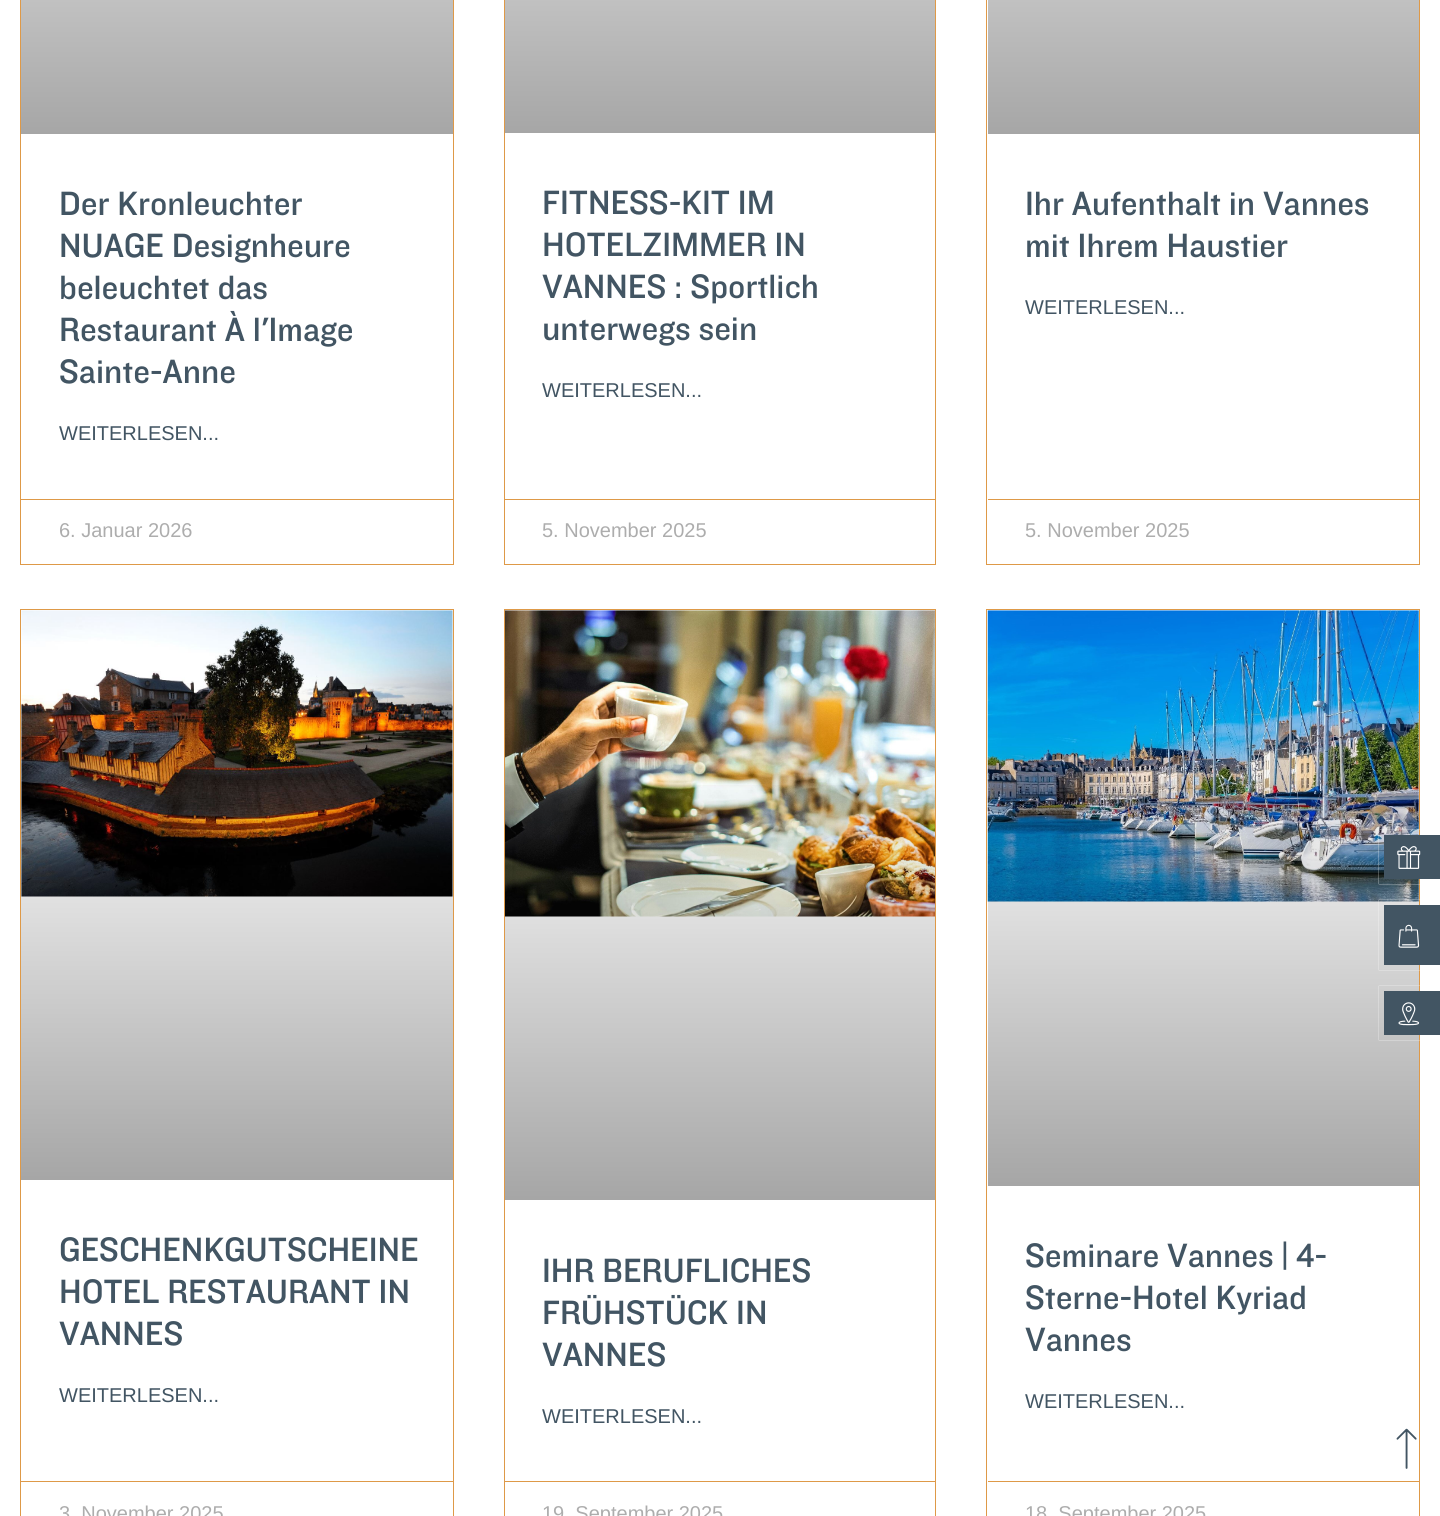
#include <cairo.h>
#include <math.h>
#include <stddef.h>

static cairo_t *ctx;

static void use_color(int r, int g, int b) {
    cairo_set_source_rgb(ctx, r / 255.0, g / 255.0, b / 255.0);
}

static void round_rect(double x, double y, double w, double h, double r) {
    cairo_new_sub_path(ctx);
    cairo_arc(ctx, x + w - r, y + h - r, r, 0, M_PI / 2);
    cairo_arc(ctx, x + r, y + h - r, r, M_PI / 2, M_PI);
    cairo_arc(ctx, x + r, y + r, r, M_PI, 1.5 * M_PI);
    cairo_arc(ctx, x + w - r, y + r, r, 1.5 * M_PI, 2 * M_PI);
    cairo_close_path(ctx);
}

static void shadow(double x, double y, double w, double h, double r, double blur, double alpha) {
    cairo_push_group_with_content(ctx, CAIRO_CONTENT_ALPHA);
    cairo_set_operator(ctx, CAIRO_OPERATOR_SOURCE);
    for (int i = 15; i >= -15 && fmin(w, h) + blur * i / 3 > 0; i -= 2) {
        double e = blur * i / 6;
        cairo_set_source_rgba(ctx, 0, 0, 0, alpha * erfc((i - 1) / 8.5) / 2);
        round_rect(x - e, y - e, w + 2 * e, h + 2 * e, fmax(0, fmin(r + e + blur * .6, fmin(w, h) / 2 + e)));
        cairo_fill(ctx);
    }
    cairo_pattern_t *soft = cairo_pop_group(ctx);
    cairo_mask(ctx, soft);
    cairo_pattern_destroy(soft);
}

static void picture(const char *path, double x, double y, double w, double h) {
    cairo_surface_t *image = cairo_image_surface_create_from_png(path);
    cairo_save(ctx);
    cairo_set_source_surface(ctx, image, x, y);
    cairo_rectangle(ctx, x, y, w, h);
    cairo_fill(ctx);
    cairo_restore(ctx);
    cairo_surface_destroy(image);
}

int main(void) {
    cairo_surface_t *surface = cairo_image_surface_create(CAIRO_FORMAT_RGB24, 1440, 1516);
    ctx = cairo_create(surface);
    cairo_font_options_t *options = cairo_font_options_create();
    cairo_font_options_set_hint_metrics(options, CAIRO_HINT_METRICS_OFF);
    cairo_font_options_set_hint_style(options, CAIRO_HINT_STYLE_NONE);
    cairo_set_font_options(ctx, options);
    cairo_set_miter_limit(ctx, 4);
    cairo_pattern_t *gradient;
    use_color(255, 255, 255);
    cairo_paint(ctx);
    cairo_rectangle(ctx, 20.5, -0.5, 433, 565);
    use_color(222, 153, 72);
    cairo_set_line_width(ctx, 1);
    cairo_stroke(ctx);
    gradient = cairo_pattern_create_linear(237, 134, 237, -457);
    cairo_pattern_add_color_stop_rgba(gradient, 0, 0.651, 0.651, 0.651, 1);
    cairo_pattern_add_color_stop_rgba(gradient, 0.75, 1, 1, 1, 1);
    cairo_set_source(ctx, gradient);
    cairo_pattern_destroy(gradient);
    cairo_rectangle(ctx, 21, 0, 432, 134);
    cairo_fill(ctx);
    cairo_select_font_face(ctx, "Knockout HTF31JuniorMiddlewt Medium", CAIRO_FONT_SLANT_NORMAL, CAIRO_FONT_WEIGHT_NORMAL);
    cairo_set_font_size(ctx, 35);
    use_color(66, 85, 99);
    cairo_move_to(ctx, 59, 215);
    cairo_show_text(ctx, "Der Kronleuchter");
    cairo_move_to(ctx, 59, 257);
    cairo_show_text(ctx, "NUAGE Designheure");
    cairo_move_to(ctx, 59, 299);
    cairo_show_text(ctx, "beleuchtet das");
    cairo_move_to(ctx, 59, 341);
    cairo_show_text(ctx, "Restaurant À l'Image");
    cairo_move_to(ctx, 59, 383);
    cairo_show_text(ctx, "Sainte-Anne");
    cairo_select_font_face(ctx, "Liberation Sans", CAIRO_FONT_SLANT_NORMAL, CAIRO_FONT_WEIGHT_NORMAL);
    cairo_set_font_size(ctx, 20);
    cairo_move_to(ctx, 59, 440);
    cairo_show_text(ctx, "WEITERLESEN...");
    use_color(222, 153, 72);
    cairo_rectangle(ctx, 21, 499, 432, 1);
    cairo_fill(ctx);
    use_color(173, 173, 173);
    cairo_move_to(ctx, 59, 537);
    cairo_show_text(ctx, "6. Januar 2026");
    cairo_rectangle(ctx, 504.5, -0.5, 431, 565);
    use_color(222, 153, 72);
    cairo_stroke(ctx);
    gradient = cairo_pattern_create_linear(720, 133, 720, -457);
    cairo_pattern_add_color_stop_rgba(gradient, 0, 0.651, 0.651, 0.651, 1);
    cairo_pattern_add_color_stop_rgba(gradient, 0.75, 1, 1, 1, 1);
    cairo_set_source(ctx, gradient);
    cairo_pattern_destroy(gradient);
    cairo_rectangle(ctx, 505, 0, 430, 133);
    cairo_fill(ctx);
    cairo_select_font_face(ctx, "Knockout HTF31JuniorMiddlewt Medium", CAIRO_FONT_SLANT_NORMAL, CAIRO_FONT_WEIGHT_NORMAL);
    cairo_set_font_size(ctx, 35);
    use_color(66, 85, 99);
    cairo_move_to(ctx, 542, 214);
    cairo_show_text(ctx, "FITNESS-KIT IM");
    cairo_move_to(ctx, 542, 256);
    cairo_show_text(ctx, "HOTELZIMMER IN");
    cairo_move_to(ctx, 542, 298);
    cairo_show_text(ctx, "VANNES : Sportlich");
    cairo_move_to(ctx, 542, 340);
    cairo_show_text(ctx, "unterwegs sein");
    cairo_select_font_face(ctx, "Liberation Sans", CAIRO_FONT_SLANT_NORMAL, CAIRO_FONT_WEIGHT_NORMAL);
    cairo_set_font_size(ctx, 20);
    cairo_move_to(ctx, 542, 397);
    cairo_show_text(ctx, "WEITERLESEN...");
    use_color(222, 153, 72);
    cairo_rectangle(ctx, 505, 499, 430, 1);
    cairo_fill(ctx);
    use_color(173, 173, 173);
    cairo_move_to(ctx, 542, 537);
    cairo_show_text(ctx, "5. November 2025");
    cairo_rectangle(ctx, 986.5, -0.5, 433, 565);
    use_color(222, 153, 72);
    cairo_stroke(ctx);
    gradient = cairo_pattern_create_linear(1203, 134, 1203, -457);
    cairo_pattern_add_color_stop_rgba(gradient, 0, 0.651, 0.651, 0.651, 1);
    cairo_pattern_add_color_stop_rgba(gradient, 0.75, 1, 1, 1, 1);
    cairo_set_source(ctx, gradient);
    cairo_pattern_destroy(gradient);
    cairo_rectangle(ctx, 988, 0, 431, 134);
    cairo_fill(ctx);
    cairo_select_font_face(ctx, "Knockout HTF31JuniorMiddlewt Medium", CAIRO_FONT_SLANT_NORMAL, CAIRO_FONT_WEIGHT_NORMAL);
    cairo_set_font_size(ctx, 35);
    use_color(66, 85, 99);
    cairo_move_to(ctx, 1025, 215);
    cairo_show_text(ctx, "Ihr Aufenthalt in Vannes");
    cairo_move_to(ctx, 1025, 257);
    cairo_show_text(ctx, "mit Ihrem Haustier");
    cairo_select_font_face(ctx, "Liberation Sans", CAIRO_FONT_SLANT_NORMAL, CAIRO_FONT_WEIGHT_NORMAL);
    cairo_set_font_size(ctx, 20);
    cairo_move_to(ctx, 1025, 314);
    cairo_show_text(ctx, "WEITERLESEN...");
    use_color(222, 153, 72);
    cairo_rectangle(ctx, 988, 499, 431, 1);
    cairo_fill(ctx);
    use_color(173, 173, 173);
    cairo_move_to(ctx, 1025, 537);
    cairo_show_text(ctx, "5. November 2025");
    cairo_rectangle(ctx, 20.5, 609.5, 433, 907);
    use_color(222, 153, 72);
    cairo_stroke(ctx);
    picture("img1.png", 21, 610, 432, 287);
    gradient = cairo_pattern_create_linear(237, 1180, 237, 610);
    cairo_pattern_add_color_stop_rgba(gradient, 0, 0, 0, 0, 0.35);
    cairo_pattern_add_color_stop_rgba(gradient, 0.75, 0, 0, 0, 0);
    cairo_set_source(ctx, gradient);
    cairo_pattern_destroy(gradient);
    cairo_rectangle(ctx, 21, 779, 432, 401);
    cairo_fill(ctx);
    cairo_select_font_face(ctx, "Knockout HTF31JuniorMiddlewt Medium", CAIRO_FONT_SLANT_NORMAL, CAIRO_FONT_WEIGHT_NORMAL);
    cairo_set_font_size(ctx, 35);
    use_color(66, 85, 99);
    cairo_move_to(ctx, 59, 1261);
    cairo_show_text(ctx, "GESCHENKGUTSCHEINE");
    cairo_move_to(ctx, 59, 1303);
    cairo_show_text(ctx, "HOTEL RESTAURANT IN");
    cairo_move_to(ctx, 59, 1345);
    cairo_show_text(ctx, "VANNES");
    cairo_select_font_face(ctx, "Liberation Sans", CAIRO_FONT_SLANT_NORMAL, CAIRO_FONT_WEIGHT_NORMAL);
    cairo_set_font_size(ctx, 20);
    cairo_move_to(ctx, 59, 1402);
    cairo_show_text(ctx, "WEITERLESEN...");
    use_color(222, 153, 72);
    cairo_rectangle(ctx, 21, 1481, 432, 1);
    cairo_fill(ctx);
    use_color(173, 173, 173);
    cairo_move_to(ctx, 59, 1520);
    cairo_show_text(ctx, "3. November 2025");
    cairo_rectangle(ctx, 504.5, 609.5, 431, 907);
    use_color(222, 153, 72);
    cairo_stroke(ctx);
    picture("img2.png", 505, 610, 430, 307);
    gradient = cairo_pattern_create_linear(720, 1200, 720, 610);
    cairo_pattern_add_color_stop_rgba(gradient, 0, 0, 0, 0, 0.35);
    cairo_pattern_add_color_stop_rgba(gradient, 0.75, 0, 0, 0, 0);
    cairo_set_source(ctx, gradient);
    cairo_pattern_destroy(gradient);
    cairo_rectangle(ctx, 505, 785, 430, 415);
    cairo_fill(ctx);
    cairo_select_font_face(ctx, "Knockout HTF31JuniorMiddlewt Medium", CAIRO_FONT_SLANT_NORMAL, CAIRO_FONT_WEIGHT_NORMAL);
    cairo_set_font_size(ctx, 35);
    use_color(66, 85, 99);
    cairo_move_to(ctx, 542, 1282);
    cairo_show_text(ctx, "IHR BERUFLICHES");
    cairo_move_to(ctx, 542, 1324);
    cairo_show_text(ctx, "FRÜHSTÜCK IN");
    cairo_move_to(ctx, 542, 1366);
    cairo_show_text(ctx, "VANNES");
    cairo_select_font_face(ctx, "Liberation Sans", CAIRO_FONT_SLANT_NORMAL, CAIRO_FONT_WEIGHT_NORMAL);
    cairo_set_font_size(ctx, 20);
    cairo_move_to(ctx, 542, 1423);
    cairo_show_text(ctx, "WEITERLESEN...");
    use_color(222, 153, 72);
    cairo_rectangle(ctx, 505, 1481, 430, 1);
    cairo_fill(ctx);
    use_color(173, 173, 173);
    cairo_move_to(ctx, 542, 1520);
    cairo_show_text(ctx, "19. September 2025");
    cairo_rectangle(ctx, 986.5, 609.5, 433, 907);
    use_color(222, 153, 72);
    cairo_stroke(ctx);
    picture("img3.png", 987, 610, 432, 292);
    gradient = cairo_pattern_create_linear(1203, 1186, 1203, 610);
    cairo_pattern_add_color_stop_rgba(gradient, 0, 0, 0, 0, 0.35);
    cairo_pattern_add_color_stop_rgba(gradient, 0.75, 0, 0, 0, 0);
    cairo_set_source(ctx, gradient);
    cairo_pattern_destroy(gradient);
    cairo_rectangle(ctx, 988, 781, 431, 405);
    cairo_fill(ctx);
    cairo_select_font_face(ctx, "Knockout HTF31JuniorMiddlewt Medium", CAIRO_FONT_SLANT_NORMAL, CAIRO_FONT_WEIGHT_NORMAL);
    cairo_set_font_size(ctx, 35);
    use_color(66, 85, 99);
    cairo_move_to(ctx, 1025, 1267);
    cairo_show_text(ctx, "Seminare Vannes | 4-");
    cairo_move_to(ctx, 1025, 1309);
    cairo_show_text(ctx, "Sterne-Hotel Kyriad");
    cairo_move_to(ctx, 1025, 1351);
    cairo_show_text(ctx, "Vannes");
    cairo_select_font_face(ctx, "Liberation Sans", CAIRO_FONT_SLANT_NORMAL, CAIRO_FONT_WEIGHT_NORMAL);
    cairo_set_font_size(ctx, 20);
    cairo_move_to(ctx, 1025, 1408);
    cairo_show_text(ctx, "WEITERLESEN...");
    use_color(222, 153, 72);
    cairo_rectangle(ctx, 988, 1481, 431, 1);
    cairo_fill(ctx);
    use_color(173, 173, 173);
    cairo_move_to(ctx, 1025, 1520);
    cairo_show_text(ctx, "18. September 2025");
    cairo_save(ctx);
    cairo_set_fill_rule(ctx, CAIRO_FILL_RULE_EVEN_ODD);
    cairo_new_path(ctx);
    cairo_move_to(ctx, 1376, 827);
    cairo_line_to(ctx, 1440, 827);
    cairo_line_to(ctx, 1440, 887);
    cairo_line_to(ctx, 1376, 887);
    cairo_close_path(ctx);
    cairo_move_to(ctx, 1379, 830);
    cairo_line_to(ctx, 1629, 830);
    cairo_line_to(ctx, 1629, 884);
    cairo_line_to(ctx, 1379, 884);
    cairo_close_path(ctx);
    cairo_clip(ctx);
    use_color(255, 255, 255);
    shadow(1379, 830, 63, 54, 0, 0.5, 1);
    cairo_restore(ctx);
    use_color(66, 85, 99);
    cairo_rectangle(ctx, 1384, 835, 56, 44);
    cairo_fill(ctx);
    picture("img4.png", 1397, 846, 24, 23);
    cairo_save(ctx);
    cairo_set_fill_rule(ctx, CAIRO_FILL_RULE_EVEN_ODD);
    cairo_new_path(ctx);
    cairo_move_to(ctx, 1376, 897);
    cairo_line_to(ctx, 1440, 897);
    cairo_line_to(ctx, 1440, 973);
    cairo_line_to(ctx, 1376, 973);
    cairo_close_path(ctx);
    cairo_move_to(ctx, 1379, 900);
    cairo_line_to(ctx, 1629, 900);
    cairo_line_to(ctx, 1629, 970);
    cairo_line_to(ctx, 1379, 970);
    cairo_close_path(ctx);
    cairo_clip(ctx);
    use_color(255, 255, 255);
    shadow(1379, 900, 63, 70, 0, 0.5, 1);
    cairo_restore(ctx);
    cairo_rectangle(ctx, 1384, 905, 56, 60);
    cairo_fill(ctx);
    picture("img5.png", 1398, 924, 22, 24);
    cairo_save(ctx);
    cairo_set_fill_rule(ctx, CAIRO_FILL_RULE_EVEN_ODD);
    cairo_new_path(ctx);
    cairo_move_to(ctx, 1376, 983);
    cairo_line_to(ctx, 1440, 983);
    cairo_line_to(ctx, 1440, 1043);
    cairo_line_to(ctx, 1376, 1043);
    cairo_close_path(ctx);
    cairo_move_to(ctx, 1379, 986);
    cairo_line_to(ctx, 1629, 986);
    cairo_line_to(ctx, 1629, 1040);
    cairo_line_to(ctx, 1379, 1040);
    cairo_close_path(ctx);
    cairo_clip(ctx);
    use_color(255, 255, 255);
    shadow(1379, 986, 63, 54, 0, 0.5, 1);
    cairo_restore(ctx);
    cairo_rectangle(ctx, 1384, 991, 56, 44);
    cairo_fill(ctx);
    picture("img6.png", 1398, 1002, 22, 24);
    picture("img7.png", 1396, 1428, 21, 41);
    cairo_surface_write_to_png(surface, "result.png");
    cairo_font_options_destroy(options);
    cairo_destroy(ctx);
    cairo_surface_destroy(surface);
    return 0;
}
